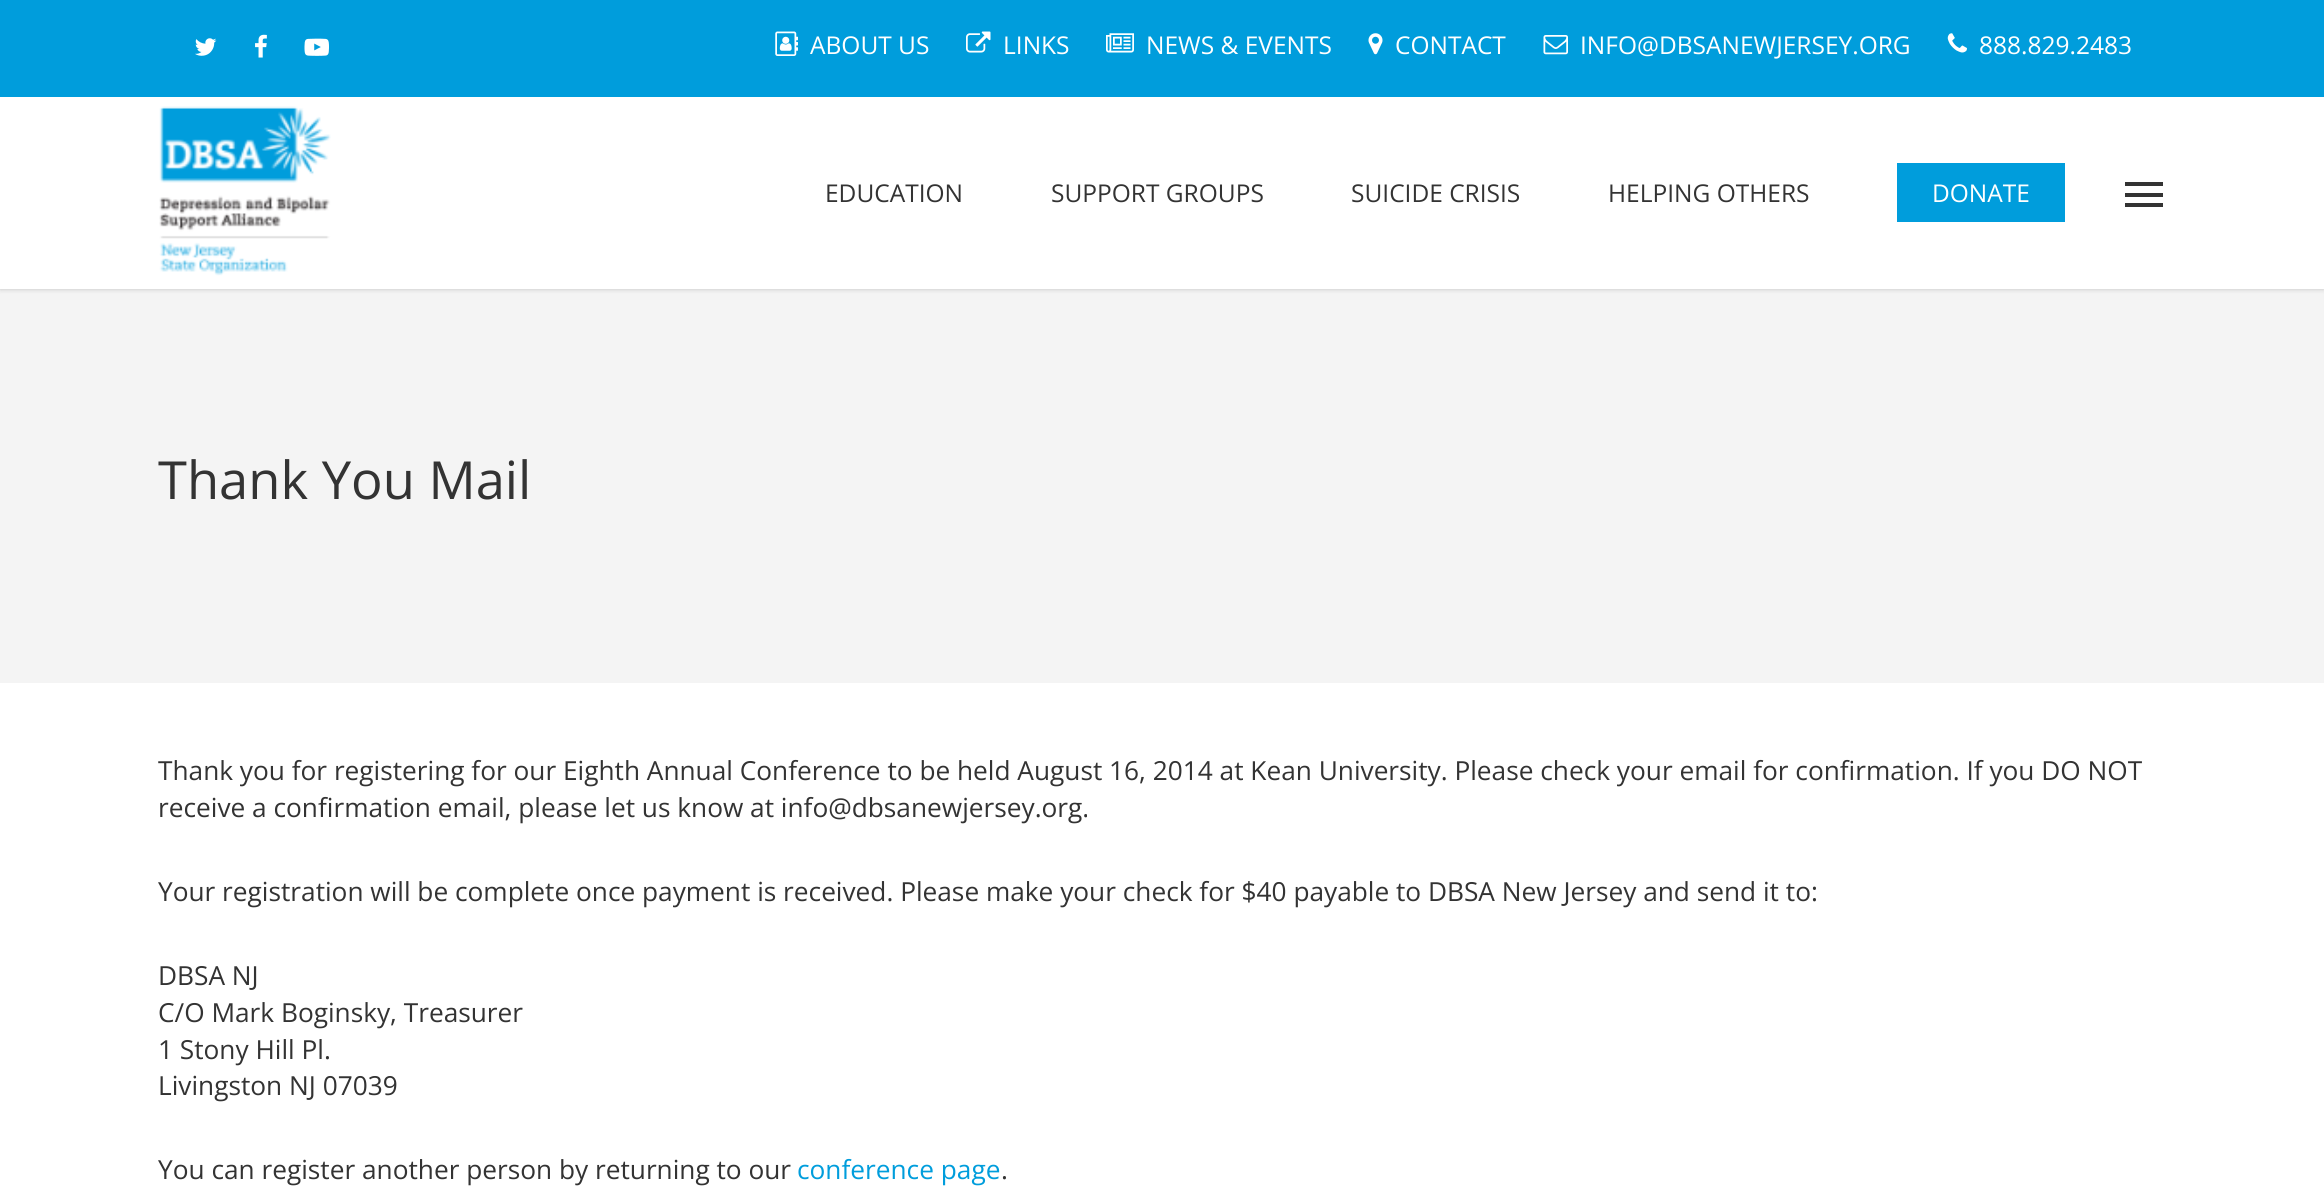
#include <cairo.h>
#include <math.h>
#include <stddef.h>

static cairo_t *ctx;

static void use_color(int r, int g, int b) {
    cairo_set_source_rgb(ctx, r / 255.0, g / 255.0, b / 255.0);
}

static void round_rect(double x, double y, double w, double h, double r) {
    cairo_new_sub_path(ctx);
    cairo_arc(ctx, x + w - r, y + h - r, r, 0, M_PI / 2);
    cairo_arc(ctx, x + r, y + h - r, r, M_PI / 2, M_PI);
    cairo_arc(ctx, x + r, y + r, r, M_PI, 1.5 * M_PI);
    cairo_arc(ctx, x + w - r, y + r, r, 1.5 * M_PI, 2 * M_PI);
    cairo_close_path(ctx);
}

static void shadow(double x, double y, double w, double h, double r, double blur, double alpha) {
    cairo_push_group_with_content(ctx, CAIRO_CONTENT_ALPHA);
    cairo_set_operator(ctx, CAIRO_OPERATOR_SOURCE);
    for (int i = 15; i >= -15 && fmin(w, h) + blur * i / 3 > 0; i -= 2) {
        double e = blur * i / 6;
        cairo_set_source_rgba(ctx, 0, 0, 0, alpha * erfc((i - 1) / 8.5) / 2);
        round_rect(x - e, y - e, w + 2 * e, h + 2 * e, fmax(0, fmin(r + e + blur * .6, fmin(w, h) / 2 + e)));
        cairo_fill(ctx);
    }
    cairo_pattern_t *soft = cairo_pop_group(ctx);
    cairo_mask(ctx, soft);
    cairo_pattern_destroy(soft);
}

static void picture(const char *path, double x, double y, double w, double h) {
    cairo_surface_t *image = cairo_image_surface_create_from_png(path);
    cairo_save(ctx);
    cairo_set_source_surface(ctx, image, x, y);
    cairo_rectangle(ctx, x, y, w, h);
    cairo_fill(ctx);
    cairo_restore(ctx);
    cairo_surface_destroy(image);
}

int main(void) {
    cairo_surface_t *surface = cairo_image_surface_create(CAIRO_FORMAT_RGB24, 2324, 1196);
    ctx = cairo_create(surface);
    cairo_font_options_t *options = cairo_font_options_create();
    cairo_font_options_set_hint_metrics(options, CAIRO_HINT_METRICS_OFF);
    cairo_font_options_set_hint_style(options, CAIRO_HINT_STYLE_NONE);
    cairo_set_font_options(ctx, options);
    cairo_set_miter_limit(ctx, 4);
    use_color(255, 255, 255);
    cairo_paint(ctx);
    use_color(244, 244, 244);
    cairo_rectangle(ctx, 0, 289, 2324, 394);
    cairo_fill(ctx);
    use_color(0, 0, 0);
    shadow(0, 0, 2324, 289, 0, 2.5, 0.22);
    use_color(255, 255, 255);
    cairo_rectangle(ctx, 0, 97, 2324, 192);
    cairo_fill(ctx);
    use_color(0, 157, 220);
    cairo_rectangle(ctx, 0, 0, 2324, 97);
    cairo_fill(ctx);
    picture("img1.png", 195, 38, 22, 18);
    picture("img2.png", 255, 34, 12, 24);
    picture("img3.png", 304, 38, 25, 18);
    picture("img4.png", 775, 31, 23, 25);
    cairo_select_font_face(ctx, "Open Sans", CAIRO_FONT_SLANT_NORMAL, CAIRO_FONT_WEIGHT_NORMAL);
    cairo_set_font_size(ctx, 24.5);
    use_color(255, 255, 255);
    cairo_move_to(ctx, 810, 54);
    cairo_show_text(ctx, "ABOUT US");
    picture("img5.png", 966, 31, 25, 22);
    cairo_move_to(ctx, 1003, 54);
    cairo_show_text(ctx, "LINKS");
    picture("img6.png", 1106, 33, 28, 20);
    cairo_move_to(ctx, 1146, 54);
    cairo_show_text(ctx, "NEWS & EVENTS");
    picture("img7.png", 1368, 33, 15, 22);
    cairo_move_to(ctx, 1395, 54);
    cairo_show_text(ctx, "CONTACT");
    picture("img8.png", 1543, 35, 25, 20);
    cairo_move_to(ctx, 1580, 54);
    cairo_show_text(ctx, "INFO@DBSANEWJERSEY.ORG");
    picture("img9.png", 1947, 33, 20, 20);
    cairo_move_to(ctx, 1979, 54);
    cairo_show_text(ctx, "888.829.2483");
    picture("img10.png", 159, 106, 172, 170);
    use_color(51, 51, 51);
    cairo_move_to(ctx, 825, 202);
    cairo_show_text(ctx, "EDUCATION");
    cairo_move_to(ctx, 1051, 202);
    cairo_show_text(ctx, "SUPPORT GROUPS");
    cairo_move_to(ctx, 1351, 202);
    cairo_show_text(ctx, "SUICIDE CRISIS");
    cairo_move_to(ctx, 1608, 202);
    cairo_show_text(ctx, "HELPING OTHERS");
    use_color(0, 157, 220);
    cairo_rectangle(ctx, 1897, 163, 168, 59);
    cairo_fill(ctx);
    use_color(255, 255, 255);
    cairo_move_to(ctx, 1932, 202);
    cairo_show_text(ctx, "DONATE");
    use_color(51, 51, 51);
    cairo_rectangle(ctx, 2125, 182, 38, 4);
    cairo_fill(ctx);
    cairo_rectangle(ctx, 2125, 203, 38, 4);
    cairo_fill(ctx);
    cairo_rectangle(ctx, 2125, 193, 38, 4);
    cairo_fill(ctx);
    cairo_set_font_size(ctx, 52.5);
    cairo_move_to(ctx, 158, 499);
    cairo_show_text(ctx, "Thank You Mail");
    cairo_set_font_size(ctx, 26.25);
    cairo_move_to(ctx, 158, 780);
    cairo_show_text(ctx, "Thank you for registering for our Eighth Annual Conference to be held August 16, 2014 at Kean University. Please check your email for confirmation. If you DO NOT");
    cairo_move_to(ctx, 158, 817);
    cairo_show_text(ctx, "receive a confirmation email, please let us know at info@dbsanewjersey.org.");
    cairo_move_to(ctx, 158, 901);
    cairo_show_text(ctx, "Your registration will be complete once payment is received. Please make your check for $40 payable to DBSA New Jersey and send it to:");
    cairo_move_to(ctx, 158, 985);
    cairo_show_text(ctx, "DBSA NJ");
    cairo_move_to(ctx, 158, 1022);
    cairo_show_text(ctx, "C/O Mark Boginsky, Treasurer");
    cairo_move_to(ctx, 158, 1059);
    cairo_show_text(ctx, "1 Stony Hill Pl.");
    cairo_move_to(ctx, 158, 1095);
    cairo_show_text(ctx, "Livingston NJ 07039");
    cairo_move_to(ctx, 158, 1179);
    cairo_show_text(ctx, "You can register another person by returning to our");
    use_color(0, 157, 220);
    cairo_move_to(ctx, 797, 1179);
    cairo_show_text(ctx, "conference page");
    use_color(51, 51, 51);
    cairo_move_to(ctx, 1001, 1179);
    cairo_show_text(ctx, ".");
    cairo_surface_write_to_png(surface, "result.png");
    cairo_font_options_destroy(options);
    cairo_destroy(ctx);
    cairo_surface_destroy(surface);
    return 0;
}
